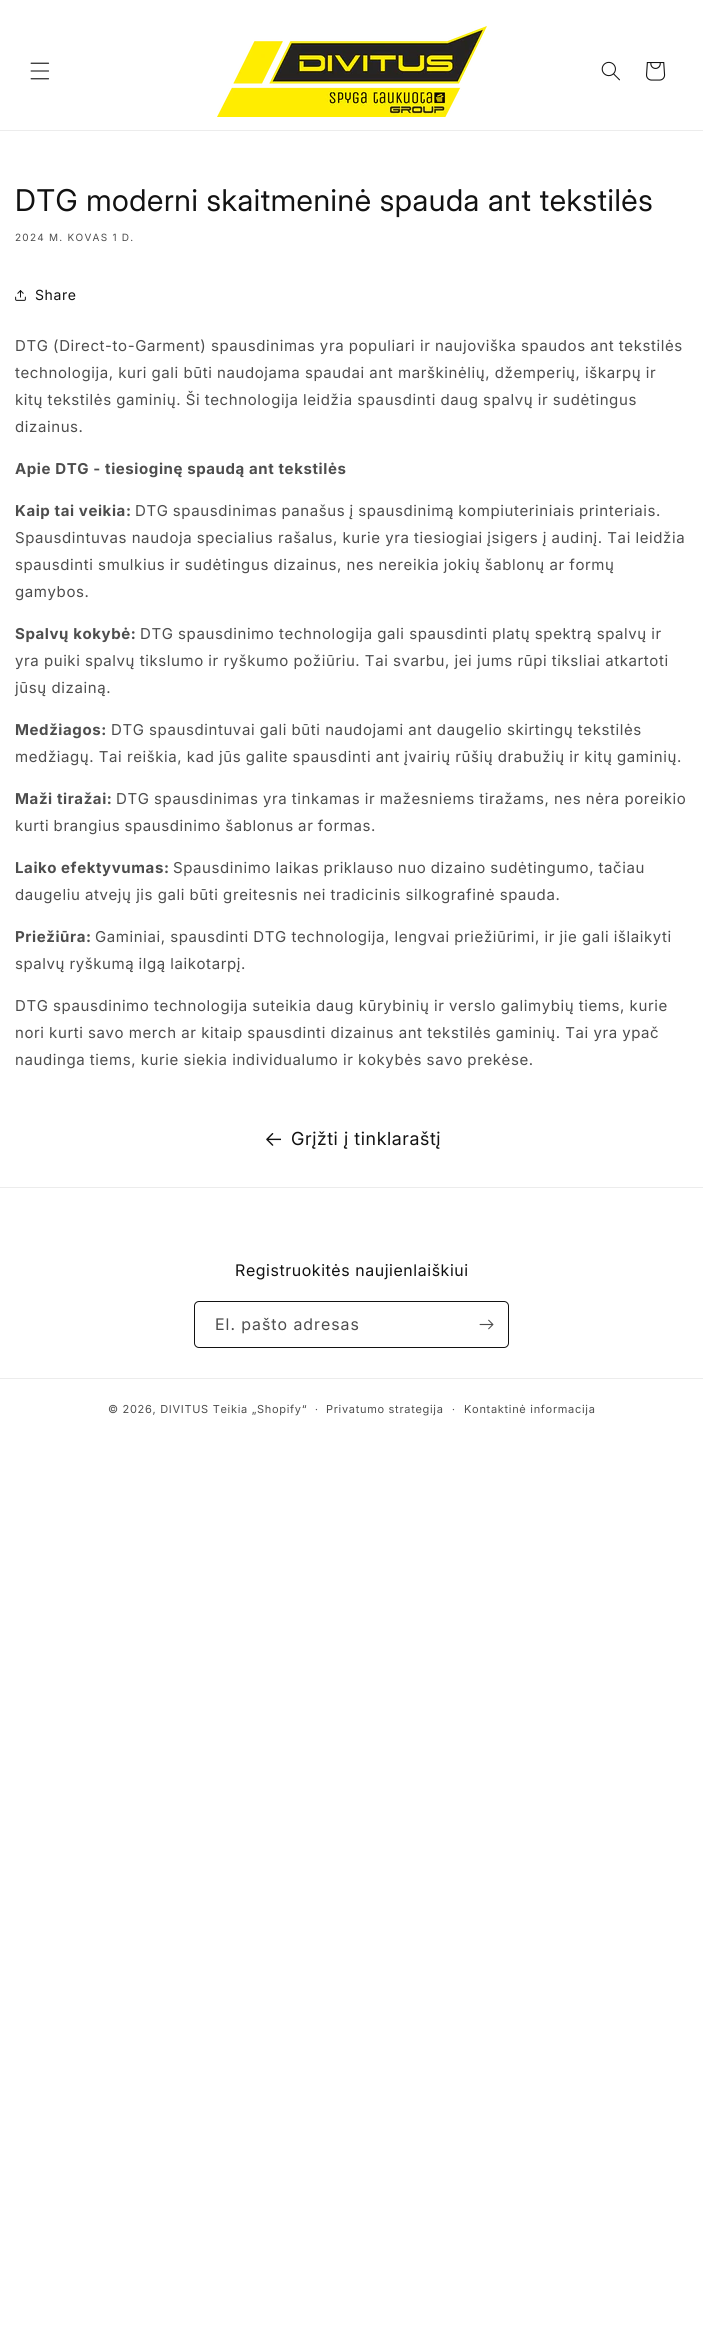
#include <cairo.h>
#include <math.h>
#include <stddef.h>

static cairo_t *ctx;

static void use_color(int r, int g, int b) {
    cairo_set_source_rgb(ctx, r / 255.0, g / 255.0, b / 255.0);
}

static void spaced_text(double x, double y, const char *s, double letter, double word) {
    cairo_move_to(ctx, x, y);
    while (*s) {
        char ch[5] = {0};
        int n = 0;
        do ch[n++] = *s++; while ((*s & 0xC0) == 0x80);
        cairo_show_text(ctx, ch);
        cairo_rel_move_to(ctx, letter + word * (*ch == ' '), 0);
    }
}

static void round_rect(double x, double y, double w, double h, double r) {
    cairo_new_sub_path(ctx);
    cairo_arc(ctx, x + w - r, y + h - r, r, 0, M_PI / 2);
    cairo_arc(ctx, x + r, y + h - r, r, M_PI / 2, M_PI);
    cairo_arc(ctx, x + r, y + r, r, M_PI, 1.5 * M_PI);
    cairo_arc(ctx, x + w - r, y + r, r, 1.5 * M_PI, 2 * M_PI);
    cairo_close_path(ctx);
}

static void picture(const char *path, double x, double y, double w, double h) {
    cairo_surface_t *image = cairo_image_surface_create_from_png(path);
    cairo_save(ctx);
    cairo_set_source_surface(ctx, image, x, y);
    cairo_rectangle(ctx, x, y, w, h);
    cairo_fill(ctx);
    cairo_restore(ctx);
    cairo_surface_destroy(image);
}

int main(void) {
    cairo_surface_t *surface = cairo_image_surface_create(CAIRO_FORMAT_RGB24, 703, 2328);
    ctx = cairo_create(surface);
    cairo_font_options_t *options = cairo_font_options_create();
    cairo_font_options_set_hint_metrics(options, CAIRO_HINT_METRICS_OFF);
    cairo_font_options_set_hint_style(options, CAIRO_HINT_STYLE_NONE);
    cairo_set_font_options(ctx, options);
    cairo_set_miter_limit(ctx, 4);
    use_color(255, 255, 255);
    cairo_paint(ctx);
    use_color(236, 236, 236);
    cairo_rectangle(ctx, 0, 130, 703, 1);
    cairo_fill(ctx);
    picture("img1.png", 30, 62, 20, 18);
    picture("img2.png", 217, 26, 270, 91);
    picture("img3.png", 601, 61, 19, 20);
    picture("img4.png", 646, 62, 20, 19);
    cairo_select_font_face(ctx, "Inter", CAIRO_FONT_SLANT_NORMAL, CAIRO_FONT_WEIGHT_NORMAL);
    cairo_set_font_size(ctx, 30);
    use_color(18, 18, 18);
    spaced_text(15, 211, "DTG moderni skaitmeninė spauda ant tekstilės", 0.6, 0);
    cairo_select_font_face(ctx, "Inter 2", CAIRO_FONT_SLANT_NORMAL, CAIRO_FONT_WEIGHT_NORMAL);
    cairo_set_font_size(ctx, 10);
    use_color(77, 77, 77);
    spaced_text(15, 241, "2024 M. KOVAS 1 D.", 1.25, 0);
    picture("img5.png", 15, 290, 11, 11);
    cairo_set_font_size(ctx, 14);
    use_color(18, 18, 18);
    spaced_text(35, 300, "Share", 0.6, 0);
    cairo_set_font_size(ctx, 15);
    use_color(77, 77, 77);
    spaced_text(15, 351, "DTG (Direct-to-Garment) spausdinimas yra populiari ir naujoviška spaudos ant tekstilės", 0.6, -0.25);
    spaced_text(15, 378, "technologija, kuri gali būti naudojama spaudai ant marškinėlių, džemperių, iškarpų ir", 0.6, -0.25);
    spaced_text(15, 405, "kitų tekstilės gaminių. Ši technologija leidžia spausdinti daug spalvų ir sudėtingus", 0.6, -0.25);
    spaced_text(15, 432, "dizainus.", 0.6, 0);
    cairo_select_font_face(ctx, "Inter", CAIRO_FONT_SLANT_NORMAL, CAIRO_FONT_WEIGHT_BOLD);
    spaced_text(15, 474, "Apie DTG - tiesioginę spaudą ant tekstilės", 0.6, 0);
    spaced_text(15, 516, "Kaip tai veikia:", 0.6, 0);
    cairo_select_font_face(ctx, "Inter 2", CAIRO_FONT_SLANT_NORMAL, CAIRO_FONT_WEIGHT_NORMAL);
    spaced_text(135, 516, "DTG spausdinimas panašus į spausdinimą kompiuteriniais printeriais.", 0.6, -0.5);
    spaced_text(15, 543, "Spausdintuvas naudoja specialius rašalus, kurie yra tiesiogiai įsigers į audinį. Tai leidžia", 0.6, -0.25);
    spaced_text(15, 570, "spausdinti smulkius ir sudėtingus dizainus, nes nereikia jokių šablonų ar formų", 0.6, -0.25);
    spaced_text(15, 597, "gamybos.", 0.6, 0);
    cairo_select_font_face(ctx, "Inter", CAIRO_FONT_SLANT_NORMAL, CAIRO_FONT_WEIGHT_BOLD);
    spaced_text(15, 639, "Spalvų kokybė:", 0.6, 0);
    cairo_select_font_face(ctx, "Inter 2", CAIRO_FONT_SLANT_NORMAL, CAIRO_FONT_WEIGHT_NORMAL);
    spaced_text(140, 639, "DTG spausdinimo technologija gali spausdinti platų spektrą spalvų ir", 0.6, -0.25);
    spaced_text(15, 666, "yra puiki spalvų tikslumo ir ryškumo požiūriu. Tai svarbu, jei jums rūpi tiksliai atkartoti", 0.6, -0.25);
    spaced_text(15, 693, "jūsų dizainą.", 0.6, 0);
    cairo_select_font_face(ctx, "Inter", CAIRO_FONT_SLANT_NORMAL, CAIRO_FONT_WEIGHT_BOLD);
    spaced_text(15, 735, "Medžiagos:", 0.6, 0);
    cairo_select_font_face(ctx, "Inter 2", CAIRO_FONT_SLANT_NORMAL, CAIRO_FONT_WEIGHT_NORMAL);
    spaced_text(111, 735, "DTG spausdintuvai gali būti naudojami ant daugelio skirtingų tekstilės", 0.6, -0.25);
    spaced_text(15, 762, "medžiagų. Tai reiškia, kad jūs galite spausdinti ant įvairių rūšių drabužių ir kitų gaminių.", 0.6, -0.25);
    cairo_select_font_face(ctx, "Inter", CAIRO_FONT_SLANT_NORMAL, CAIRO_FONT_WEIGHT_BOLD);
    spaced_text(15, 804, "Maži tiražai:", 0.6, 0);
    cairo_select_font_face(ctx, "Inter 2", CAIRO_FONT_SLANT_NORMAL, CAIRO_FONT_WEIGHT_NORMAL);
    spaced_text(116, 804, "DTG spausdinimas yra tinkamas ir mažesniems tiražams, nes nėra poreikio", 0.6, -0.25);
    spaced_text(15, 831, "kurti brangius spausdinimo šablonus ar formas.", 0.6, -0.5);
    cairo_select_font_face(ctx, "Inter", CAIRO_FONT_SLANT_NORMAL, CAIRO_FONT_WEIGHT_BOLD);
    spaced_text(15, 873, "Laiko efektyvumas:", 0.6, -0.25);
    cairo_select_font_face(ctx, "Inter 2", CAIRO_FONT_SLANT_NORMAL, CAIRO_FONT_WEIGHT_NORMAL);
    spaced_text(173, 873, "Spausdinimo laikas priklauso nuo dizaino sudėtingumo, tačiau", 0.6, -0.5);
    spaced_text(15, 900, "daugeliu atvejų jis gali būti greitesnis nei tradicinis silkografinė spauda.", 0.6, -0.25);
    cairo_select_font_face(ctx, "Inter", CAIRO_FONT_SLANT_NORMAL, CAIRO_FONT_WEIGHT_BOLD);
    spaced_text(15, 942, "Priežiūra:", 0.6, 0);
    cairo_select_font_face(ctx, "Inter 2", CAIRO_FONT_SLANT_NORMAL, CAIRO_FONT_WEIGHT_NORMAL);
    spaced_text(95, 942, "Gaminiai, spausdinti DTG technologija, lengvai priežiūrimi, ir jie gali išlaikyti", 0.6, -0.25);
    spaced_text(15, 969, "spalvų ryškumą ilgą laikotarpį.", 0.6, -0.5);
    spaced_text(15, 1011, "DTG spausdinimo technologija suteikia daug kūrybinių ir verslo galimybių tiems, kurie", 0.6, -0.25);
    spaced_text(15, 1038, "nori kurti savo merch ar kitaip spausdinti dizainus ant tekstilės gaminių. Tai yra ypač", 0.6, -0.25);
    spaced_text(15, 1065, "naudinga tiems, kurie siekia individualumo ir kokybės savo prekėse.", 0.6, -0.25);
    picture("img6.png", 266, 1133, 15, 13);
    cairo_select_font_face(ctx, "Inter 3", CAIRO_FONT_SLANT_NORMAL, CAIRO_FONT_WEIGHT_NORMAL);
    cairo_set_font_size(ctx, 18);
    use_color(18, 18, 18);
    spaced_text(291, 1145, "Grįžti į tinklaraštį", 0.6, 0);
    use_color(236, 236, 236);
    cairo_rectangle(ctx, 0, 1187, 703, 1);
    cairo_fill(ctx);
    cairo_select_font_face(ctx, "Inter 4", CAIRO_FONT_SLANT_NORMAL, CAIRO_FONT_WEIGHT_NORMAL);
    cairo_set_font_size(ctx, 16);
    use_color(18, 18, 18);
    spaced_text(235, 1276, "Registruokitės naujienlaiškiui", 0.6, 0);
    round_rect(194.5, 1301.5, 314, 46, 4.5);
    cairo_set_line_width(ctx, 1);
    cairo_stroke(ctx);
    use_color(77, 77, 77);
    spaced_text(215, 1330, "El. pašto adresas", 1, 0);
    picture("img7.png", 479, 1319, 15, 11);
    use_color(236, 236, 236);
    cairo_rectangle(ctx, 0, 1378, 703, 1);
    cairo_fill(ctx);
    cairo_select_font_face(ctx, "Inter 2", CAIRO_FONT_SLANT_NORMAL, CAIRO_FONT_WEIGHT_NORMAL);
    cairo_set_font_size(ctx, 11);
    use_color(77, 77, 77);
    spaced_text(108, 1413, "© 2026, DIVITUS Teikia „Shopify“", 0.7, 0);
    cairo_set_font_size(ctx, 10);
    spaced_text(315, 1413, "·", 0.7, 0);
    cairo_set_font_size(ctx, 11);
    spaced_text(326, 1413, "Privatumo strategija", 0.7, 0);
    cairo_set_font_size(ctx, 10);
    spaced_text(452, 1413, "·", 0.7, 0);
    cairo_set_font_size(ctx, 11);
    spaced_text(464, 1413, "Kontaktinė informacija", 0.7, 0);
    cairo_surface_write_to_png(surface, "result.png");
    cairo_font_options_destroy(options);
    cairo_destroy(ctx);
    cairo_surface_destroy(surface);
    return 0;
}
